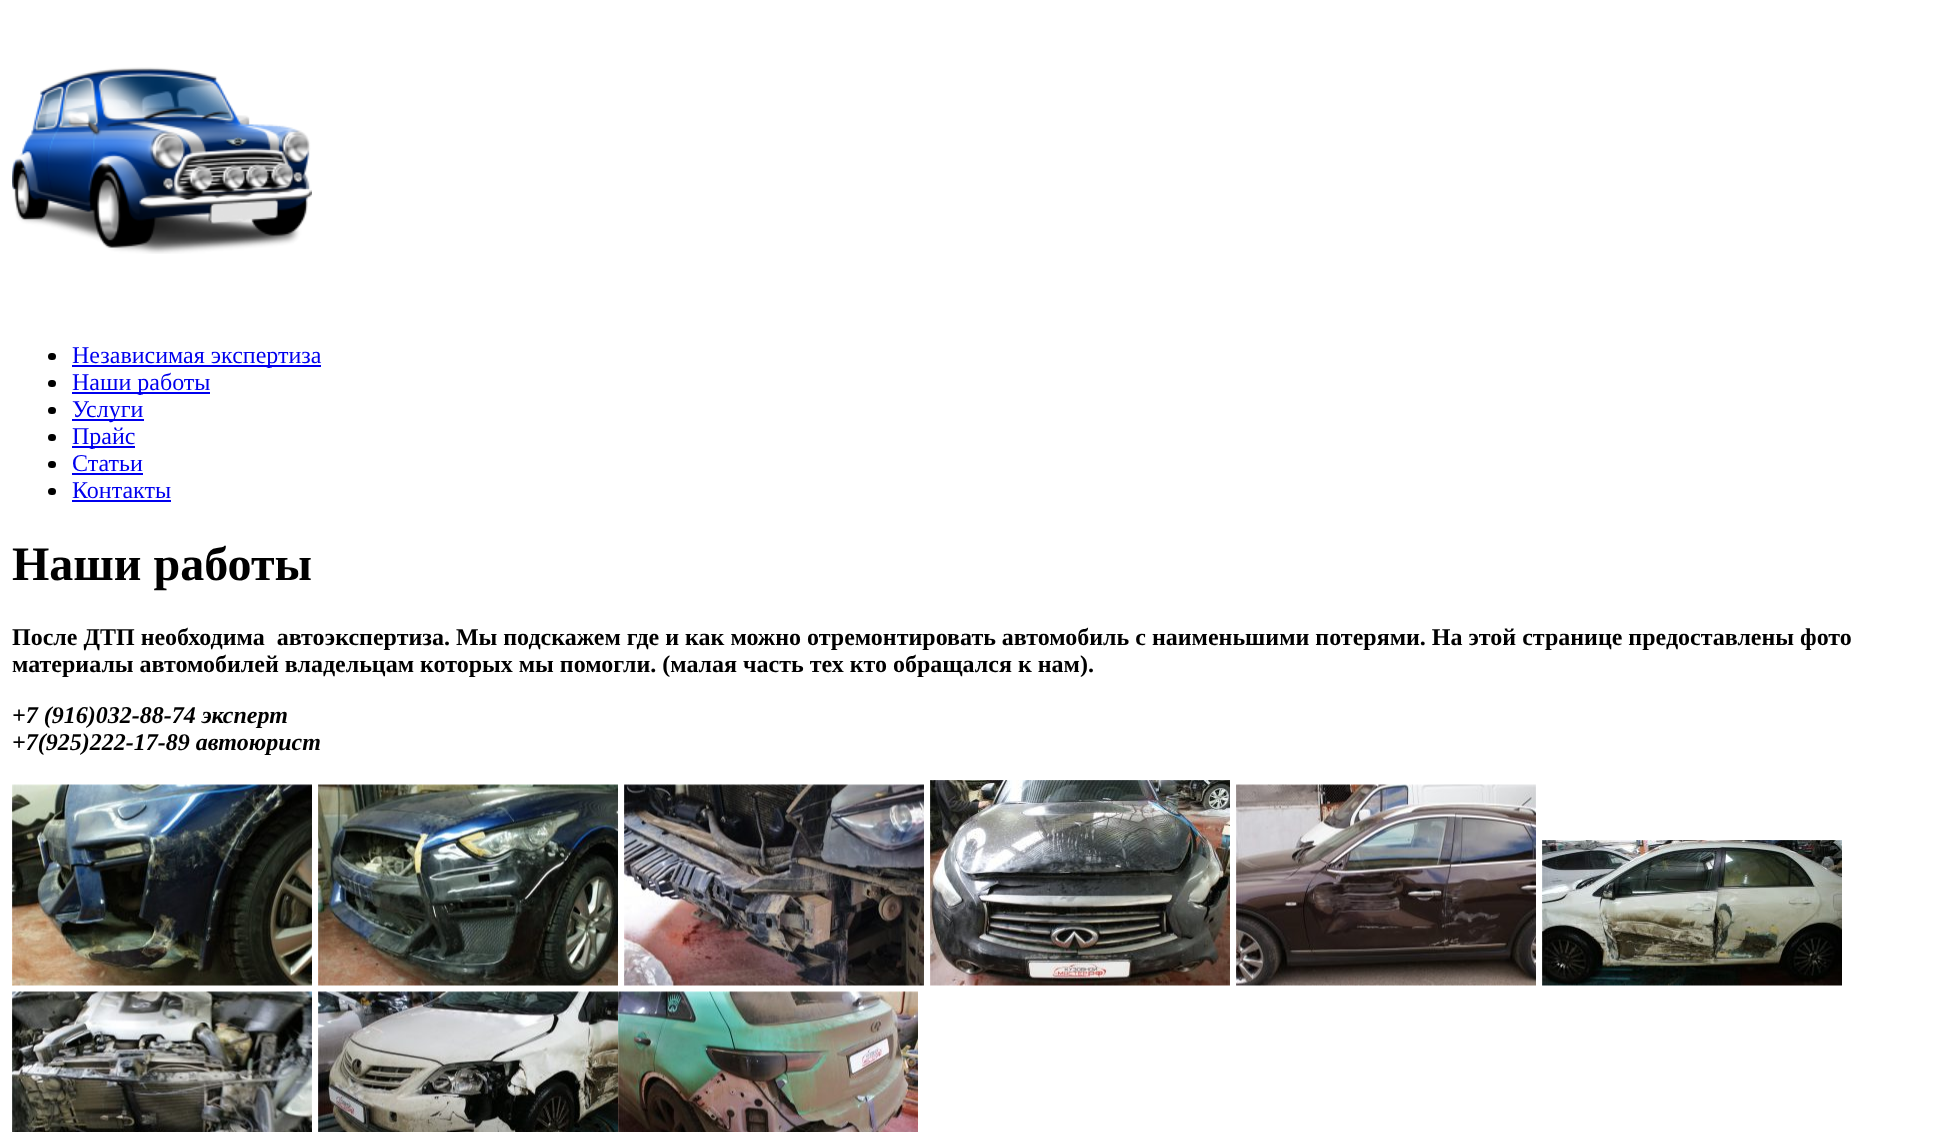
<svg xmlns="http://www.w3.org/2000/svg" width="1956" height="1132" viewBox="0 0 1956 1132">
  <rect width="100%" height="100%" fill="#fff"/>
  <image x="12" y="67" width="300" height="187" href="img/1.png"/>
  <rect x="48" y="353" width="8" height="7" rx="3.5" fill="#000"/>
  <path d="M72 365h249v2H72z" fill="#00e"/>
  <rect x="48" y="380" width="8" height="7" rx="3.5" fill="#000"/>
  <path d="M72 392h138v2H72z" fill="#00e"/>
  <rect x="48" y="407" width="8" height="7" rx="3.5" fill="#000"/>
  <path d="M72 419h72v2H72z" fill="#00e"/>
  <rect x="48" y="434" width="8" height="7" rx="3.5" fill="#000"/>
  <path d="M72 446h63v2H72z" fill="#00e"/>
  <rect x="48" y="461" width="8" height="7" rx="3.5" fill="#000"/>
  <path d="M72 473h71v2H72z" fill="#00e"/>
  <rect x="48" y="488" width="8" height="7" rx="3.5" fill="#000"/>
  <path d="M72 500h99v2H72z" fill="#00e"/>
  <image x="12" y="784" width="300" height="202" href="img/2.png"/>
  <image x="318" y="784" width="300" height="202" href="img/3.png"/>
  <image x="624" y="784" width="300" height="202" href="img/4.png"/>
  <image x="930" y="780" width="300" height="206" href="img/5.png"/>
  <image x="1236" y="784" width="300" height="202" href="img/6.png"/>
  <image x="1542" y="840" width="300" height="146" href="img/7.png"/>
  <image x="12" y="991" width="300" height="141" href="img/8.png"/>
  <image x="318" y="991" width="300" height="141" href="img/9.png"/>
  <image x="618" y="991" width="300" height="141" href="img/10.png"/>
  <g font-family="Liberation Serif" font-size="24" fill="#00e">
    <text x="72" y="363">Независимая экспертиза</text>
    <text x="72" y="390">Наши работы</text>
    <text x="72" y="417">Услуги</text>
    <text x="72" y="444">Прайс</text>
    <text x="72" y="471">Статьи</text>
    <text x="72" y="498">Контакты</text>
  </g>
  <text x="12" y="580" font-family="Liberation Serif" font-size="48" font-weight="bold" fill="#000">Наши работы</text>
  <g font-family="Liberation Serif" font-size="24" font-weight="bold" fill="#000">
    <text x="12" y="645" xml:space="preserve">После ДТП необходима  автоэкспертиза. Мы подскажем где и как можно отремонтировать автомобиль с наименьшими потерями. На этой странице предоставлены фото</text>
    <text x="12" y="672">материалы автомобилей владельцам которых мы помогли. (малая часть тех кто обращался к нам).</text>
  </g>
  <g font-family="Liberation Serif" font-size="24" font-weight="bold" font-style="italic" fill="#000">
    <text x="12" y="723">+7 (916)032-88-74 эксперт</text>
    <text x="12" y="750">+7(925)222-17-89 автоюрист</text>
  </g>
</svg>
